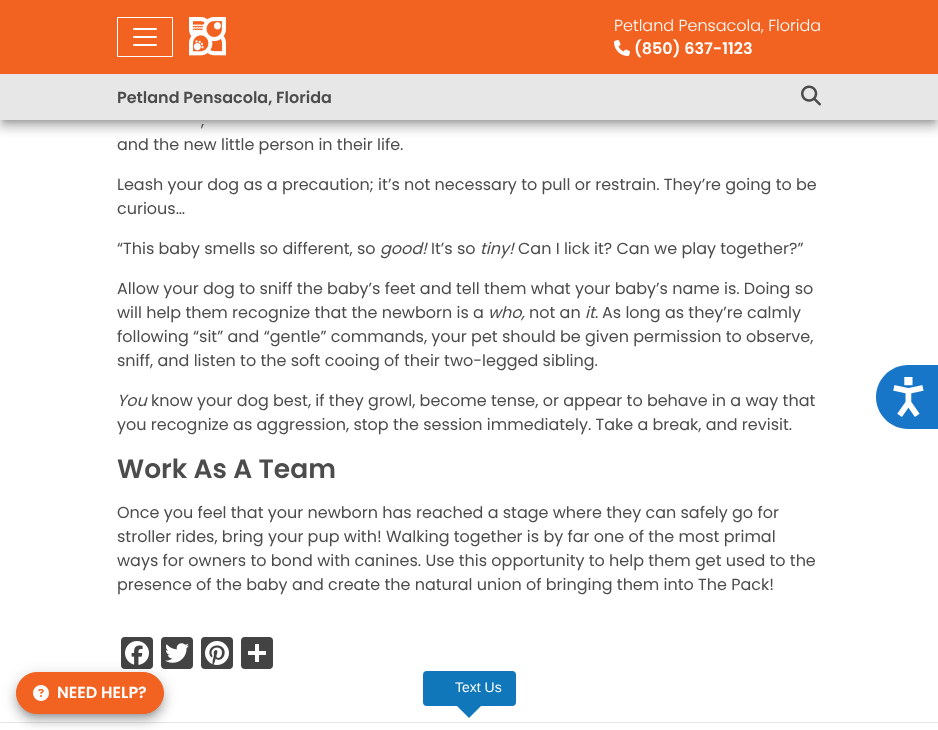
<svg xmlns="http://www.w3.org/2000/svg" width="938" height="730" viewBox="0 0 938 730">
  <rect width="100%" height="100%" fill="#fff"/>
  <path d="M-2 1h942v124H-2z" fill="#0000001f" filter="blur(7px)"/>
  <path d="M-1 7h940v122H-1z" fill="#00000024" filter="blur(5px)"/>
  <path d="M3 8h932v114H3z" fill="#00000033" filter="blur(2.5px)"/>
  <path d="M0 74h938v46H0z" fill="#e7e7e7"/>
  <path d="M0 0h938v74H0z" fill="#f26322"/>
  <path d="M117.5 17.5h55v39H117.5z" fill="none" stroke="#fff"/>
  <image x="133" y="28" width="24" height="18" href="img/1.png"/>
  <image x="189" y="17" width="37" height="39" href="img/2.png"/>
  <image x="614" y="40" width="16" height="16" href="img/3.png"/>
  <image x="801" y="85" width="20" height="21" href="img/4.png"/>
  <rect x="121" y="637" width="32" height="32" rx="4" fill="#434343"/>
  <image x="125" y="641" width="24" height="24" href="img/5.png"/>
  <rect x="161" y="637" width="32" height="32" rx="4" fill="#434343"/>
  <image x="165" y="643" width="24" height="20" href="img/6.png"/>
  <rect x="201" y="637" width="32" height="32" rx="4" fill="#434343"/>
  <image x="205" y="641" width="24" height="24" href="img/7.png"/>
  <rect x="241" y="637" width="32" height="32" rx="4" fill="#434343"/>
  <path d="M255 644h4v18H255z" fill="#fff"/>
  <path d="M248 651h18v4H248z" fill="#fff"/>
  <path d="M908 365H938V429H908C890.5 429 876 414.5 876 397C876 379.5 890.5 365 908 365Z" fill="#1876c9"/>
  <image x="893" y="377" width="31" height="40" href="img/8.png"/>
  <path d="M0 722h938v1H0z" fill="#e7e7e7"/>
  <rect x="14" y="673" width="152" height="46" rx="23" fill="#0000001f" filter="blur(7px)"/>
  <rect x="15" y="679" width="150" height="44" rx="22" fill="#00000024" filter="blur(5px)"/>
  <rect x="19" y="680" width="142" height="36" rx="18" fill="#00000033" filter="blur(2.5px)"/>
  <rect x="16.5" y="672.5" width="147" height="41" rx="20.5" fill="#f26322" stroke="#f26322"/>
  <image x="33" y="685" width="16" height="16" href="img/9.png"/>
  <rect x="423" y="671" width="93" height="35" rx="4" fill="#0f77ba"/>
  <path d="M457 706H481L469 718Z" fill="#0f77ba"/>
  <text x="614" y="31" font-family="Poppins" font-size="16" font-weight="300" fill="#fff">Petland Pensacola, Florida</text>
  <text x="634" y="54" font-family="Poppins" font-size="16" font-weight="600" fill="#fff">(850) 637-1123</text>
  <text x="117" y="103" font-family="Poppins" font-size="16" font-weight="600" fill="#4c4c4c">Petland Pensacola, Florida</text>
  <g font-family="Poppins" font-size="16" fill="#4c4c4c">
    <text x="201" y="126">,</text>
    <text x="117" y="150">and the new little person in their life.</text>
    <text x="117" y="190">Leash your dog as a precaution; it’s not necessary to pull or restrain. They’re going to be</text>
    <text x="117" y="214">curious…</text>
    <text x="117" y="254">“This baby smells so different, so</text>
  </g>
  <text x="380" y="254" font-family="Poppins" font-size="16" font-style="italic" fill="#4c4c4c">good!</text>
  <text x="431" y="254" font-family="Poppins" font-size="16" fill="#4c4c4c">It’s so</text>
  <text x="480" y="254" font-family="Poppins" font-size="16" font-style="italic" fill="#4c4c4c">tiny!</text>
  <g font-family="Poppins" font-size="16" fill="#4c4c4c">
    <text x="518" y="254">Can I lick it? Can we play together?”</text>
    <text x="117" y="294">Allow your dog to sniff the baby’s feet and tell them what your baby’s name is. Doing so</text>
    <text x="117" y="318">will help them recognize that the newborn is a</text>
  </g>
  <text x="488" y="318" font-family="Poppins" font-size="16" font-style="italic" fill="#4c4c4c">who,</text>
  <text x="529" y="318" font-family="Poppins" font-size="16" fill="#4c4c4c">not an</text>
  <text x="585" y="318" font-family="Poppins" font-size="16" font-style="italic" fill="#4c4c4c">it.</text>
  <g font-family="Poppins" font-size="16" fill="#4c4c4c">
    <text x="602" y="318">As long as they’re calmly</text>
    <text x="117" y="342">following “sit” and “gentle” commands, your pet should be given permission to observe,</text>
    <text x="117" y="366">sniff, and listen to the soft cooing of their two-legged sibling.</text>
  </g>
  <text x="117" y="406" font-family="Poppins" font-size="16" font-style="italic" fill="#4c4c4c">You</text>
  <g font-family="Poppins" font-size="16" fill="#4c4c4c">
    <text x="151" y="406">know your dog best, if they growl, become tense, or appear to behave in a way that</text>
    <text x="117" y="430">you recognize as aggression, stop the session immediately. Take a break, and revisit.</text>
  </g>
  <text x="117" y="478" font-family="Poppins" font-size="26.5" font-weight="600" fill="#4c4c4c">Work As A Team</text>
  <g font-family="Poppins" font-size="16" fill="#4c4c4c">
    <text x="117" y="518">Once you feel that your newborn has reached a stage where they can safely go for</text>
    <text x="117" y="542">stroller rides, bring your pup with! Walking together is by far one of the most primal</text>
    <text x="117" y="566">ways for owners to bond with canines. Use this opportunity to help them get used to the</text>
    <text x="117" y="590">presence of the baby and create the natural union of bringing them into The Pack!</text>
  </g>
  <text x="57" y="698" font-family="Poppins" font-size="16" font-weight="600" fill="#fff">NEED HELP?</text>
  <text x="455" y="692" font-family="Liberation Sans" font-size="14" fill="#fff">Text Us</text>
</svg>
